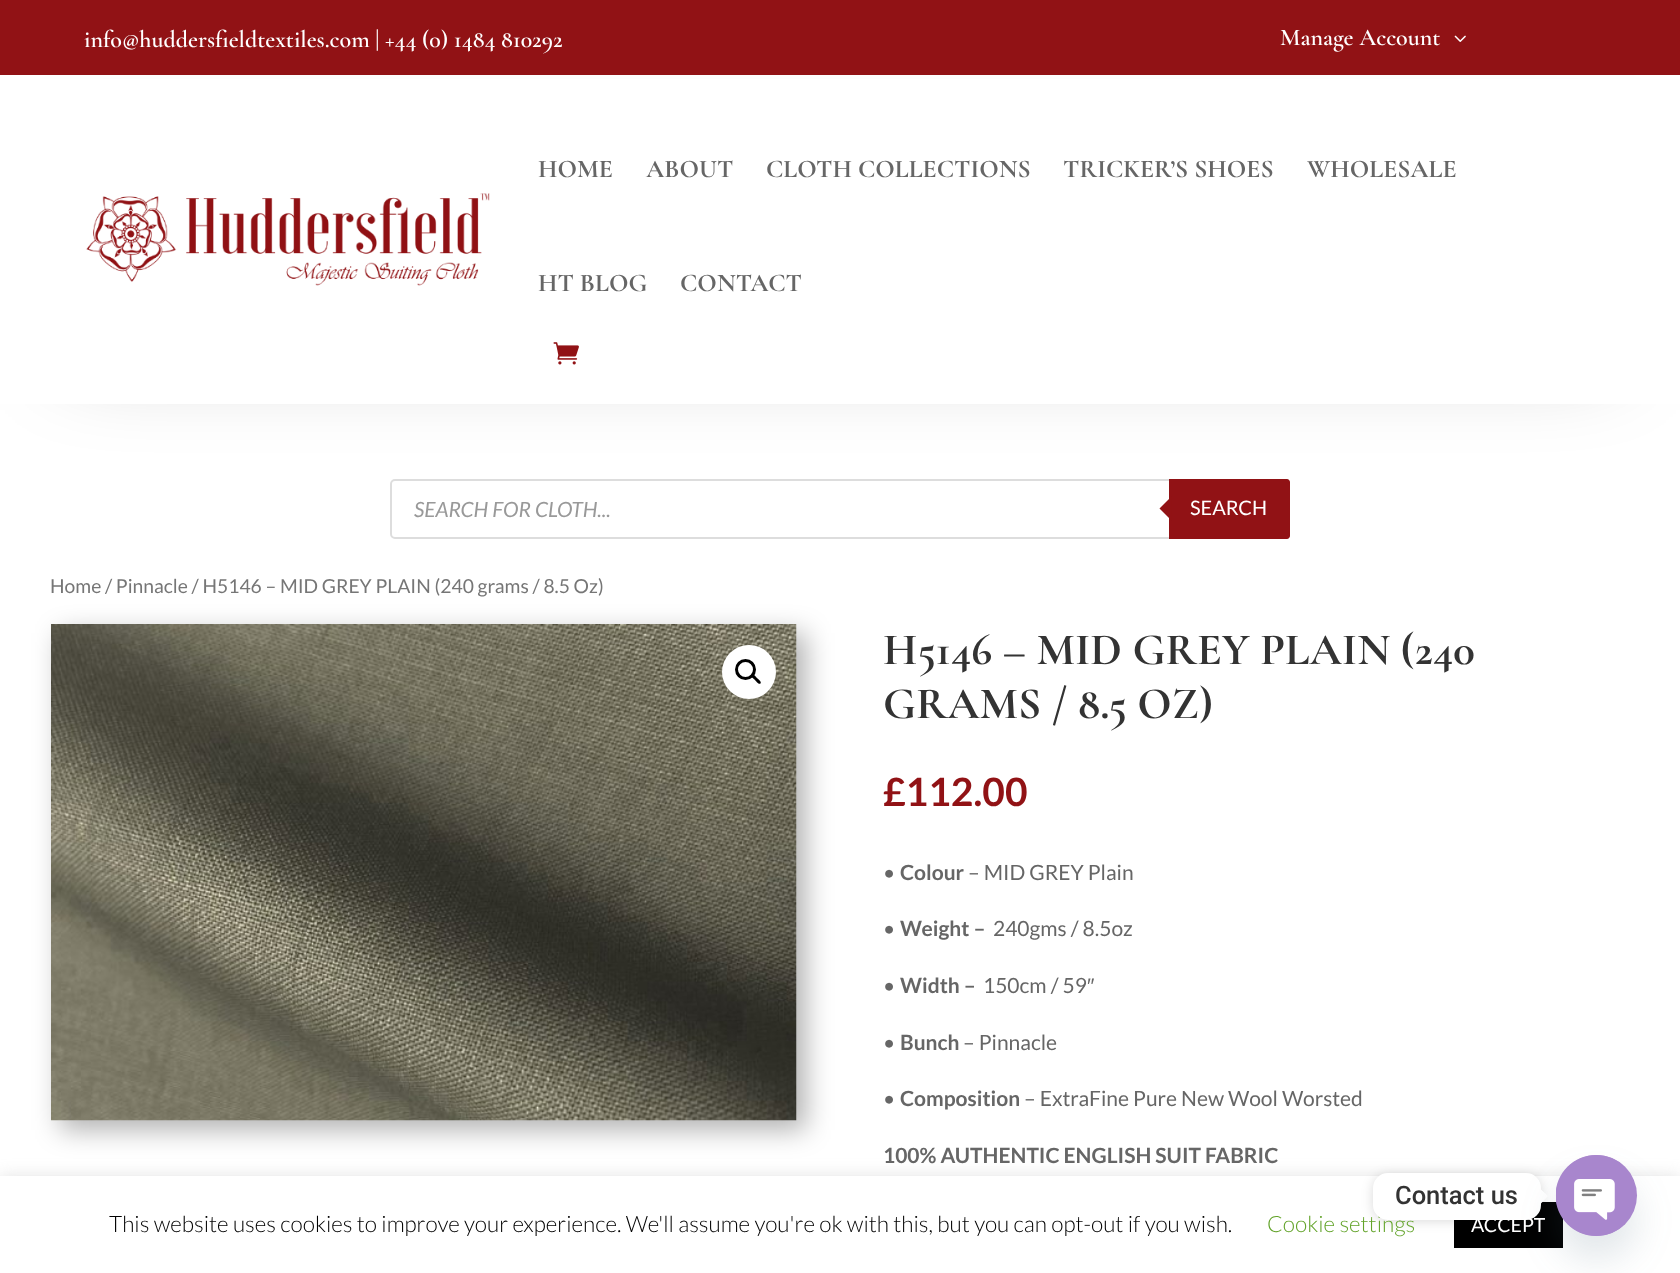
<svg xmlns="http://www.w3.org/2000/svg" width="1680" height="1273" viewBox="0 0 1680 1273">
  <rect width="100%" height="100%" fill="#fff"/>
  <rect x="391" y="480" width="898" height="58" rx="4" fill="none" stroke="#ddd" stroke-width="2"/>
  <path d="M1169 479H1287C1288.5 479 1290 480.5 1290 482V536C1290 537.5 1288.5 539 1287 539H1169Z" fill="#911215"/>
  <path d="M68 161h1545v193H68z" fill="#0000004d" filter="blur(45px)"/>
  <path d="M0 0h1680v75H0z" fill="#911215"/>
  <image x="1454" y="35" width="12" height="7" href="img/1.png"/>
  <path d="M0 79h1680v325H0z" fill="#fff"/>
  <image x="86" y="193" width="404" height="93" href="img/2.png"/>
  <image x="553" y="342" width="26" height="23" href="img/3.png"/>
  <path d="M1171.5 496.5V520.5L1159.5 508.5Z" fill="#911215"/>
  <path d="M60 633h746v497H60z" fill="#0000004d" filter="blur(13.5px)"/>
  <image x="51" y="624" width="746" height="497" href="img/4.png"/>
  <circle cx="749" cy="672" r="27" fill="#fff"/>
  <circle cx="745.5" cy="669.5" r="9" fill="none" stroke="#000" stroke-width="3"/>
  <path d="M752 675C753.5 673 756 677 757 678C758 679 762 681.5 760.5 683.5C758.5 685 756 681 755 680C754 679 750 676.5 752 675Z" fill="#000"/>
  <path d="M0 1175h1680v97H0z" fill="#acabab4d" filter="blur(7.5px)"/>
  <path d="M0 1176h1680v97H0z" fill="#fff"/>
  <path d="M1454 1202h109v46H1454z" fill="#000"/>
  <rect x="1373" y="1175" width="168" height="46" rx="15" fill="#00000026" filter="blur(6px)"/>
  <g font-family="Cormorant Garamond" font-size="24" font-weight="600" fill="#fff">
    <text x="84" y="47">info@huddersfieldtextiles.com | +44 (0) 1484 810292</text>
    <text x="1280" y="45">Manage Account</text>
  </g>
  <g font-family="Cormorant Garamond" font-size="25.5" font-weight="300" fill="#666">
    <text x="538" y="177">HOME</text>
    <text x="646" y="177">ABOUT</text>
    <text x="766" y="177">CLOTH COLLECTIONS</text>
    <text x="1063" y="177">TRICKER’S SHOES</text>
    <text x="1307" y="177">WHOLESALE</text>
    <text x="538" y="291">HT BLOG</text>
    <text x="680" y="291">CONTACT</text>
  </g>
  <text x="414" y="517" font-family="Lato" font-size="21" font-style="italic" fill="#999">SEARCH FOR CLOTH...</text>
  <text x="1190" y="515" font-family="Lato" font-size="20" fill="#fff">SEARCH</text>
  <text x="50" y="593" font-family="Lato" font-size="19.3" fill="#767676">Home / Pinnacle / H5146 – MID GREY PLAIN (240 grams / 8.5 Oz)</text>
  <g font-family="Cormorant Garamond" font-size="45" font-weight="300" fill="#333">
    <text x="883" y="664">H5146 – MID GREY PLAIN (240</text>
    <text x="883" y="718">GRAMS / 8.5 OZ)</text>
  </g>
  <text x="883" y="806" font-family="Lato" font-size="39" font-weight="bold" fill="#911215">£112.00</text>
  <text x="883" y="880" font-family="Lato" font-size="21" fill="#666">•</text>
  <text x="900" y="880" font-family="Lato" font-size="21" font-weight="bold" fill="#666">Colour</text>
  <g font-family="Lato" font-size="21" fill="#666">
    <text x="968" y="880">– MID GREY Plain</text>
    <text x="883" y="936">•</text>
  </g>
  <text x="900" y="936" font-family="Lato" font-size="21" font-weight="bold" fill="#666">Weight –</text>
  <text x="993" y="936" font-family="Lato" font-size="21" fill="#666">240gms / 8.5oz</text>
  <text x="900" y="993" font-family="Lato" font-size="21" font-weight="bold" fill="#666">Width –</text>
  <text x="983" y="993" font-family="Lato" font-size="21" fill="#666">150cm / 59</text>
  <text x="1087" y="993" font-family="Liberation Sans" font-size="21" fill="#666">″</text>
  <g font-family="Lato" font-size="21" fill="#666">
    <text x="883" y="993">•</text>
    <text x="883" y="1050">•</text>
  </g>
  <text x="900" y="1050" font-family="Lato" font-size="21" font-weight="bold" fill="#666">Bunch</text>
  <g font-family="Lato" font-size="21" fill="#666">
    <text x="963" y="1050">– Pinnacle</text>
    <text x="883" y="1106">•</text>
  </g>
  <text x="900" y="1106" font-family="Lato" font-size="21" font-weight="bold" fill="#666">Composition</text>
  <text x="1024" y="1106" font-family="Lato" font-size="21" fill="#666">– ExtraFine Pure New Wool Worsted</text>
  <text x="883" y="1163" font-family="Lato" font-size="21" font-weight="bold" fill="#666">100% AUTHENTIC ENGLISH SUIT FABRIC</text>
  <text x="109" y="1232" font-family="Lato" font-size="22.5" font-weight="300" fill="#000">This website uses cookies to improve your experience. We'll assume you're ok with this, but you can opt-out if you wish.</text>
  <text x="1267" y="1232" font-family="Lato" font-size="22.5" font-weight="300" fill="#62a329">Cookie settings</text>
  <rect x="1373" y="1173" width="168" height="47" rx="15" fill="#fff"/>
  <path d="M1540.5 1204V1189L1548 1196Z" fill="#fff"/>
  <rect x="1556" y="1179" width="81" height="81" rx="40.5" fill="#49687e29" filter="blur(18px)"/>
  <circle cx="1596.5" cy="1195.5" r="40.5" fill="#a886cd"/>
  <image x="1556" y="1155" width="67" height="81" href="img/5.png"/>
  <text x="1395" y="1204" font-family="Roboto" font-size="25.5" font-weight="500" fill="#333">Contact us</text>
  <text x="1471" y="1232" font-family="Lato" font-size="19.5" fill="#fff">ACCEPT</text>
</svg>
